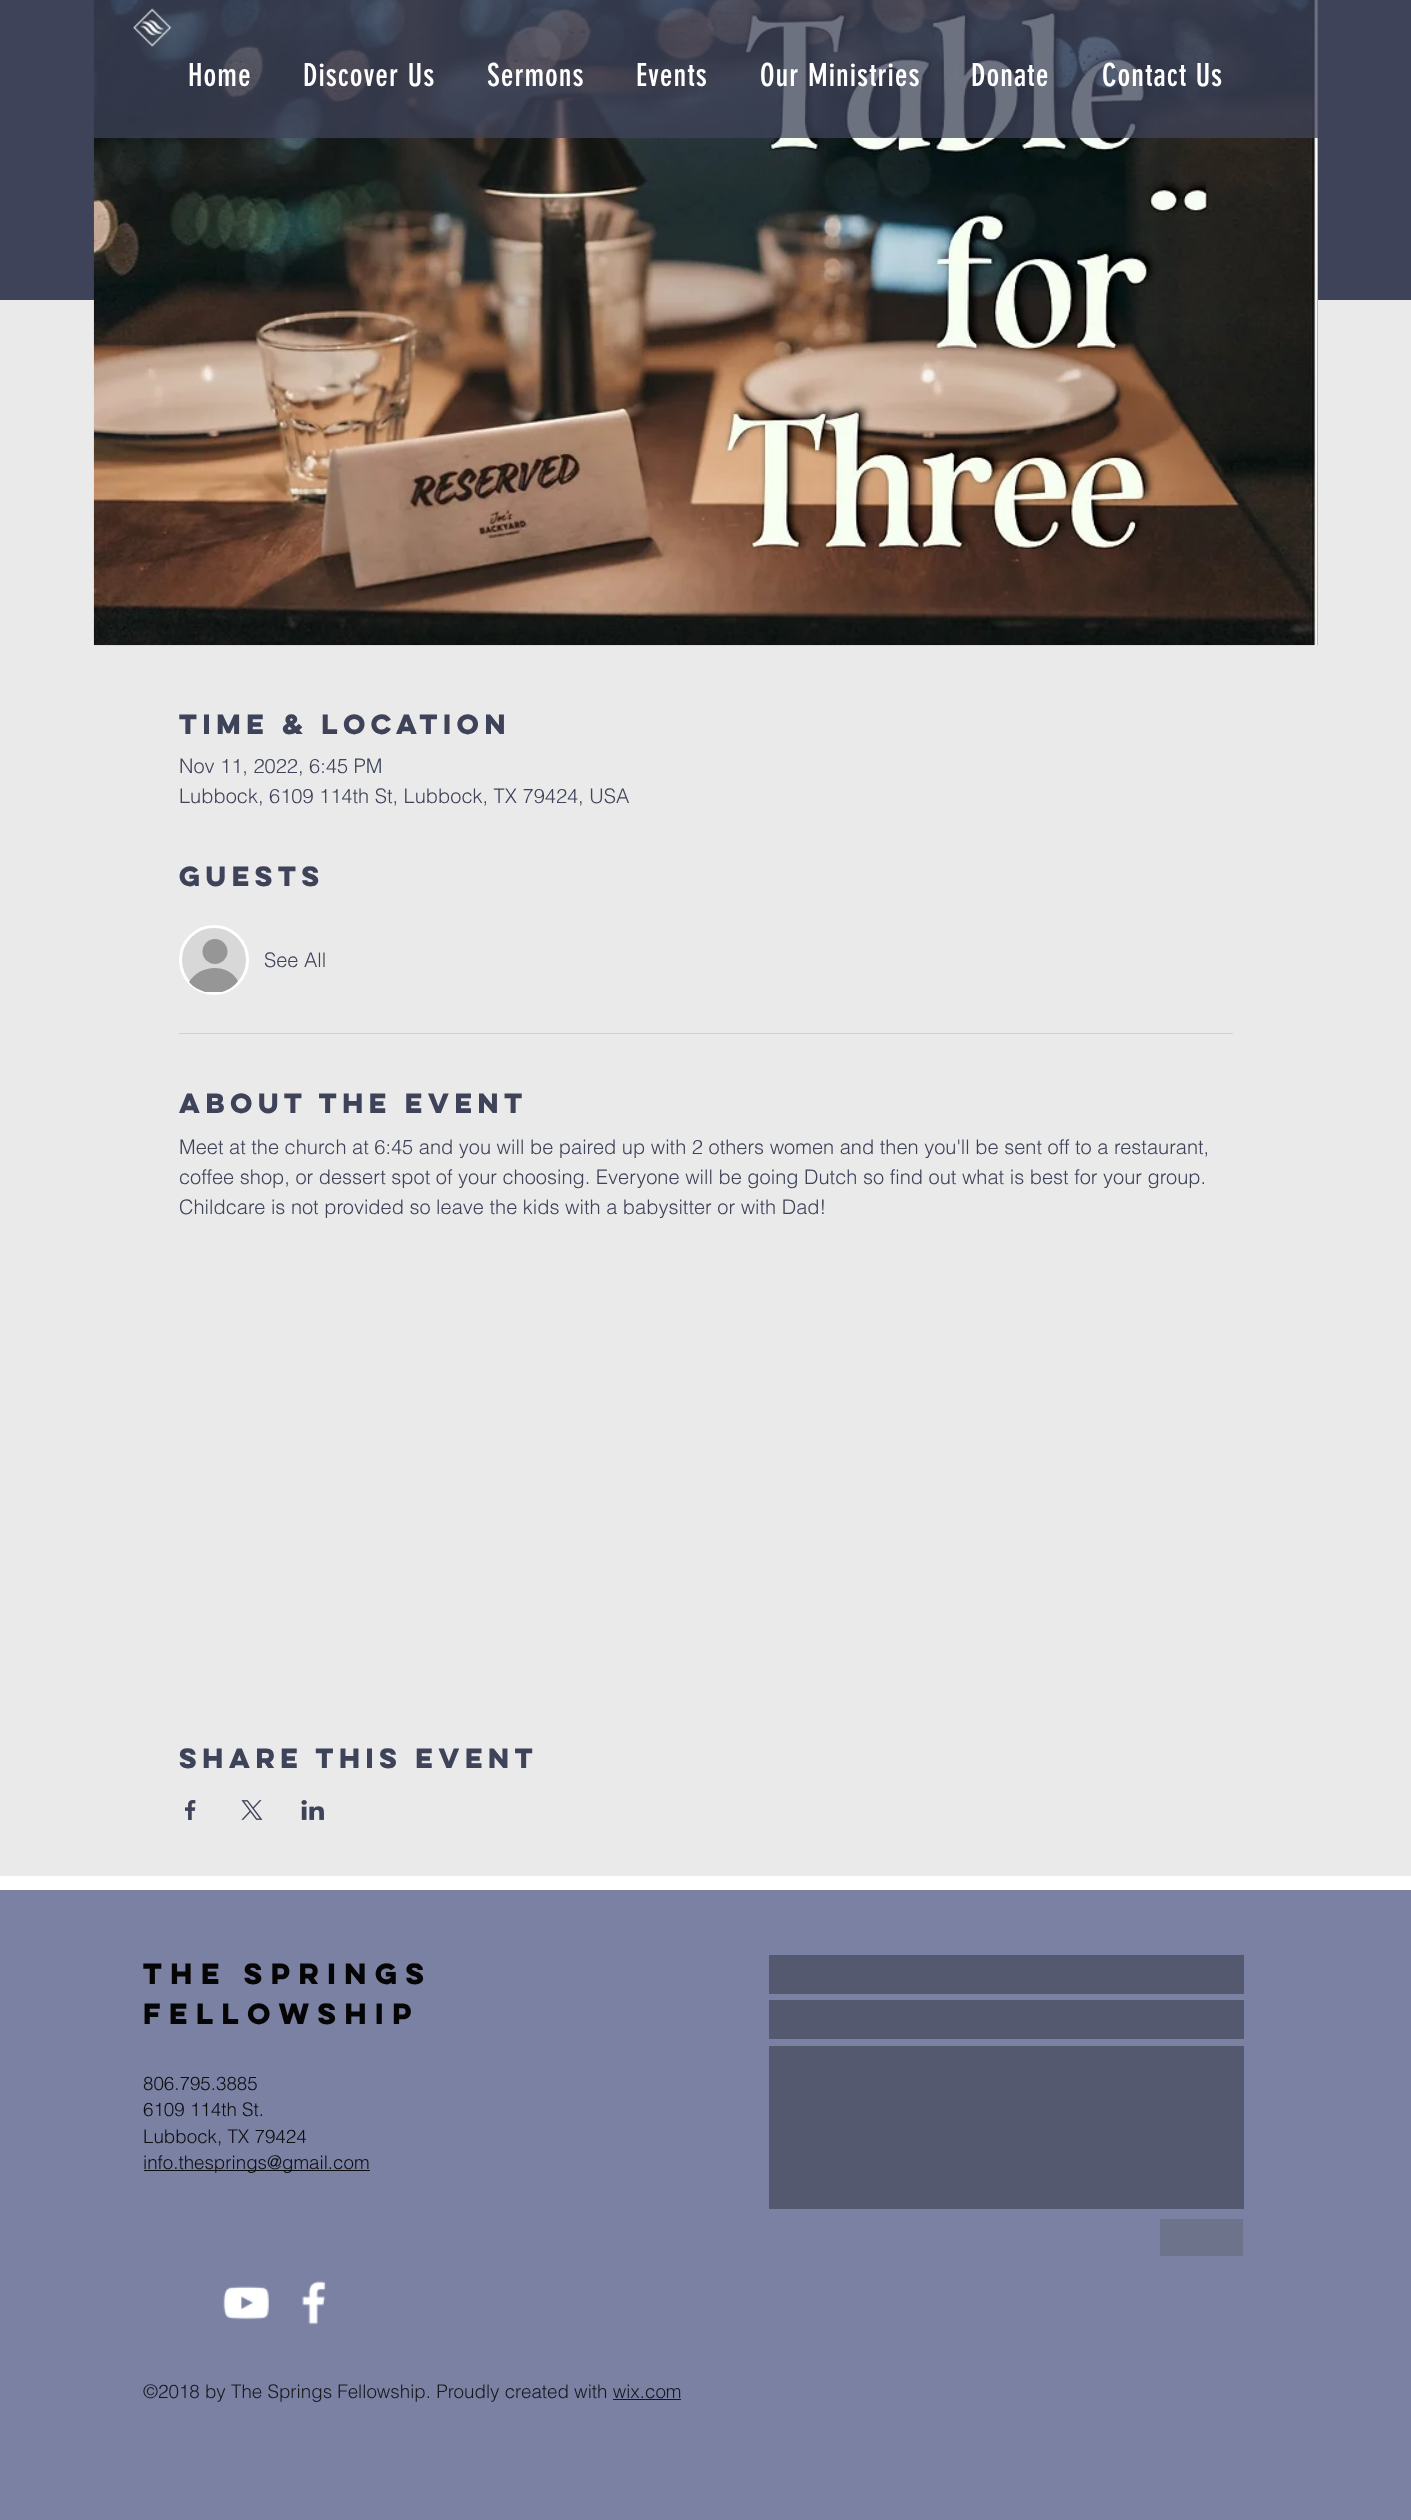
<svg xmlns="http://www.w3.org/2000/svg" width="1411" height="2520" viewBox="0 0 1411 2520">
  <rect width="100%" height="100%" fill="#fff"/>
  <path d="M0 0h1411v300H0z" fill="#3f4359"/>
  <path d="M0 300h1411v1576H0z" fill="#eaeaea"/>
  <path d="M1317 0h1v645H1317z" fill="#9b9eac"/>
  <image x="93" y="0" width="1225" height="646" href="img/2.png"/>
  <path d="M93 0h1225v138H93z" fill="#3f4359bf"/>
  <image x="133" y="8" width="39" height="39" href="img/1.png"/>
  <circle cx="214" cy="960" r="33.5" fill="#d8d8d8" stroke="#fff" stroke-width="3"/>
  <circle cx="215" cy="951.5" r="12.5" fill="#969696"/>
  <path d="M205 992C199 990 193 987 189 982C200 964 228 963 238 981C234 987 228 990 222 992Z" fill="#969696"/>
  <path d="M179 1033h1054v1H179z" fill="#d0d1d4"/>
  <image x="185" y="1800" width="11" height="20" href="img/3.png"/>
  <image x="241" y="1800" width="22" height="20" href="img/4.png"/>
  <image x="301" y="1800" width="23" height="20" href="img/5.png"/>
  <path d="M0 1890h1411v630H0z" fill="#7b81a3"/>
  <path d="M769 1955h475v39H769z" fill="#555970"/>
  <path d="M769 2000h475v39H769z" fill="#555970"/>
  <path d="M769 2046h475v163H769z" fill="#555970"/>
  <path d="M1160 2219h83v37H1160z" fill="#6e738c"/>
  <path d="M144 2170h226v1H144z" fill="#0e0e11"/>
  <image x="223" y="2286" width="46" height="34" href="img/6.png"/>
  <image x="302" y="2281" width="24" height="44" href="img/7.png"/>
  <path d="M613 2399h68v1H613z" fill="#17181c"/>
  <g font-family="'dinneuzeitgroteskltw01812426'" font-size="31.25" letter-spacing="1" fill="#fff">
    <text x="188" y="86">Home</text>
    <text x="303" y="86">Discover Us</text>
    <text x="487" y="86">Sermons</text>
    <text x="636" y="86">Events</text>
    <text x="760" y="86">Our Ministries</text>
    <text x="971" y="86">Donate</text>
    <text x="1102" y="86">Contact Us</text>
  </g>
  <text x="179" y="734" font-family="'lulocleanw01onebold'" font-size="25" font-weight="bold" fill="#3f4359">Time &amp; Location</text>
  <g font-family="helvetica" font-size="20" font-weight="300" fill="#3f4359">
    <text x="179" y="773">Nov 11, 2022, 6:45 PM</text>
    <text x="179" y="803">Lubbock, 6109 114th St, Lubbock, TX 79424, USA</text>
  </g>
  <text x="179" y="886" font-family="'lulocleanw01onebold'" font-size="25" font-weight="bold" fill="#3f4359">Guests</text>
  <text x="264" y="967" font-family="helvetica" font-size="20" font-weight="300" fill="#3f4359">See All</text>
  <text x="179" y="1113" font-family="'lulocleanw01onebold'" font-size="25" font-weight="bold" fill="#3f4359">About the Event</text>
  <g font-family="helvetica" font-size="20" font-weight="300" fill="#3f4359">
    <text x="179" y="1154">Meet at the church at 6:45 and you will be paired up with 2 others women and then you'll be sent off to a restaurant,</text>
    <text x="179" y="1184">coffee shop, or dessert spot of your choosing. Everyone will be going Dutch so find out what is best for your group.</text>
    <text x="179" y="1214">Childcare is not provided so leave the kids with a babysitter or with Dad!</text>
  </g>
  <text x="179" y="1768" font-family="'lulocleanw01onebold'" font-size="25" font-weight="bold" fill="#3f4359">Share This Event</text>
  <g font-family="'lulocleanw01onebold'" font-size="26.25" font-weight="bold" letter-spacing="2.6" fill="#050505">
    <text x="143" y="1984">the springs</text>
    <text x="143" y="2024">fellowship</text>
  </g>
  <g font-family="helvetica" font-size="18.75" font-weight="300" fill="#0e0e11">
    <text x="143" y="2090">806.795.3885</text>
    <text x="143" y="2116">6109 114th St.</text>
    <text x="143" y="2143">Lubbock, TX 79424</text>
    <text x="143" y="2169">info.thesprings@gmail.com</text>
  </g>
  <text x="143" y="2398" font-family="helvetica" font-size="18.75" font-weight="300" fill="#17181c">©2018 by The Springs Fellowship. Proudly created with wix.com</text>
</svg>
